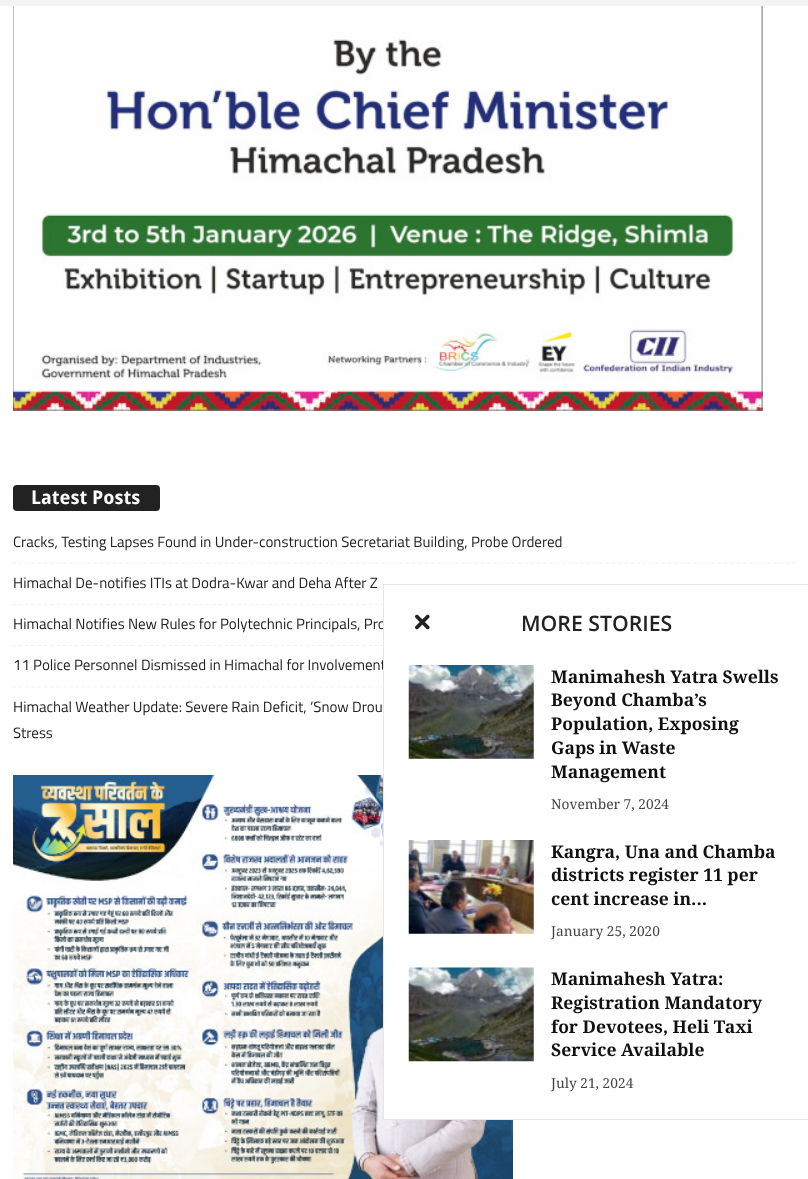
<svg xmlns="http://www.w3.org/2000/svg" width="808" height="1179" viewBox="0 0 808 1179">
  <rect width="100%" height="100%" fill="#fff"/>
  <path d="M0 0h808v6H0z" fill="#f4f4f4"/>
  <image x="13" y="6" width="750" height="405" href="img/1.png"/>
  <rect x="13" y="485" width="147" height="26" rx="4" fill="#222"/>
  <path d="M12.5 563H796" fill="none" stroke="#f1f1f1" stroke-width="1.2" stroke-dasharray="3.75 2.49"/>
  <path d="M12.5 604.5H796" fill="none" stroke="#f1f1f1" stroke-width="1.2" stroke-dasharray="3.75 2.49"/>
  <path d="M12.5 645.5H796" fill="none" stroke="#f1f1f1" stroke-width="1.2" stroke-dasharray="3.75 2.49"/>
  <path d="M12.5 687H796" fill="none" stroke="#f1f1f1" stroke-width="1.2" stroke-dasharray="3.75 2.49"/>
  <image x="13" y="775" width="500" height="404" href="img/2.png"/>
  <path d="M383 584h425v1H383z" fill="#e6e6e6"/>
  <path d="M383 1119h425v1H383z" fill="#e6e6e6"/>
  <text x="31" y="504" font-family="Droid Sans" font-size="18.75" font-weight="bold" fill="#fff">Latest Posts</text>
  <g font-family="Titillium Web" font-size="15" fill="#222">
    <text x="13" y="547">Cracks, Testing Lapses Found in Under-construction Secretariat Building, Probe Ordered</text>
    <text x="13" y="588">Himachal De-notifies ITIs at Dodra-Kwar and Deha After Z</text>
    <text x="13" y="629">Himachal Notifies New Rules for Polytechnic Principals, Pro</text>
    <text x="13" y="670">11 Police Personnel Dismissed in Himachal for Involvement</text>
    <text x="13" y="712">Himachal Weather Update: Severe Rain Deficit, ‘Snow Drou</text>
    <text x="13" y="738">Stress</text>
  </g>
  <path d="M384 604h412v515H384z" fill="#fff"/>
  <path d="M383 584h1v536H383z" fill="#e6e6e6"/>
  <image x="415" y="614" width="15" height="16" href="img/3.png"/>
  <text x="521" y="631" font-family="Open Sans" font-size="21.25" font-weight="600" fill="#222">MORE STORIES</text>
  <image x="408" y="665" width="126" height="94" href="img/4.png"/>
  <g font-family="Droid Serif" font-size="17.5" font-weight="bold" fill="#111">
    <text x="551" y="683">Manimahesh Yatra Swells</text>
    <text x="551" y="706">Beyond Chamba’s</text>
    <text x="551" y="730">Population, Exposing</text>
    <text x="551" y="754">Gaps in Waste</text>
    <text x="551" y="778">Management</text>
  </g>
  <text x="551" y="809" font-family="Droid Serif" font-size="13.75" fill="#444">November 7, 2024</text>
  <image x="408" y="840" width="126" height="94" href="img/5.png"/>
  <g font-family="Droid Serif" font-size="17.5" font-weight="bold" fill="#111">
    <text x="551" y="858">Kangra, Una and Chamba</text>
    <text x="551" y="881">districts register 11 per</text>
    <text x="551" y="905">cent increase in...</text>
  </g>
  <text x="551" y="936" font-family="Droid Serif" font-size="13.75" fill="#444">January 25, 2020</text>
  <image x="408" y="967" width="126" height="95" href="img/6.png"/>
  <g font-family="Droid Serif" font-size="17.5" font-weight="bold" fill="#111">
    <text x="551" y="985">Manimahesh Yatra:</text>
    <text x="551" y="1009">Registration Mandatory</text>
    <text x="551" y="1033">for Devotees, Heli Taxi</text>
    <text x="551" y="1056">Service Available</text>
  </g>
  <text x="551" y="1088" font-family="Droid Serif" font-size="13.75" fill="#444">July 21, 2024</text>
</svg>
